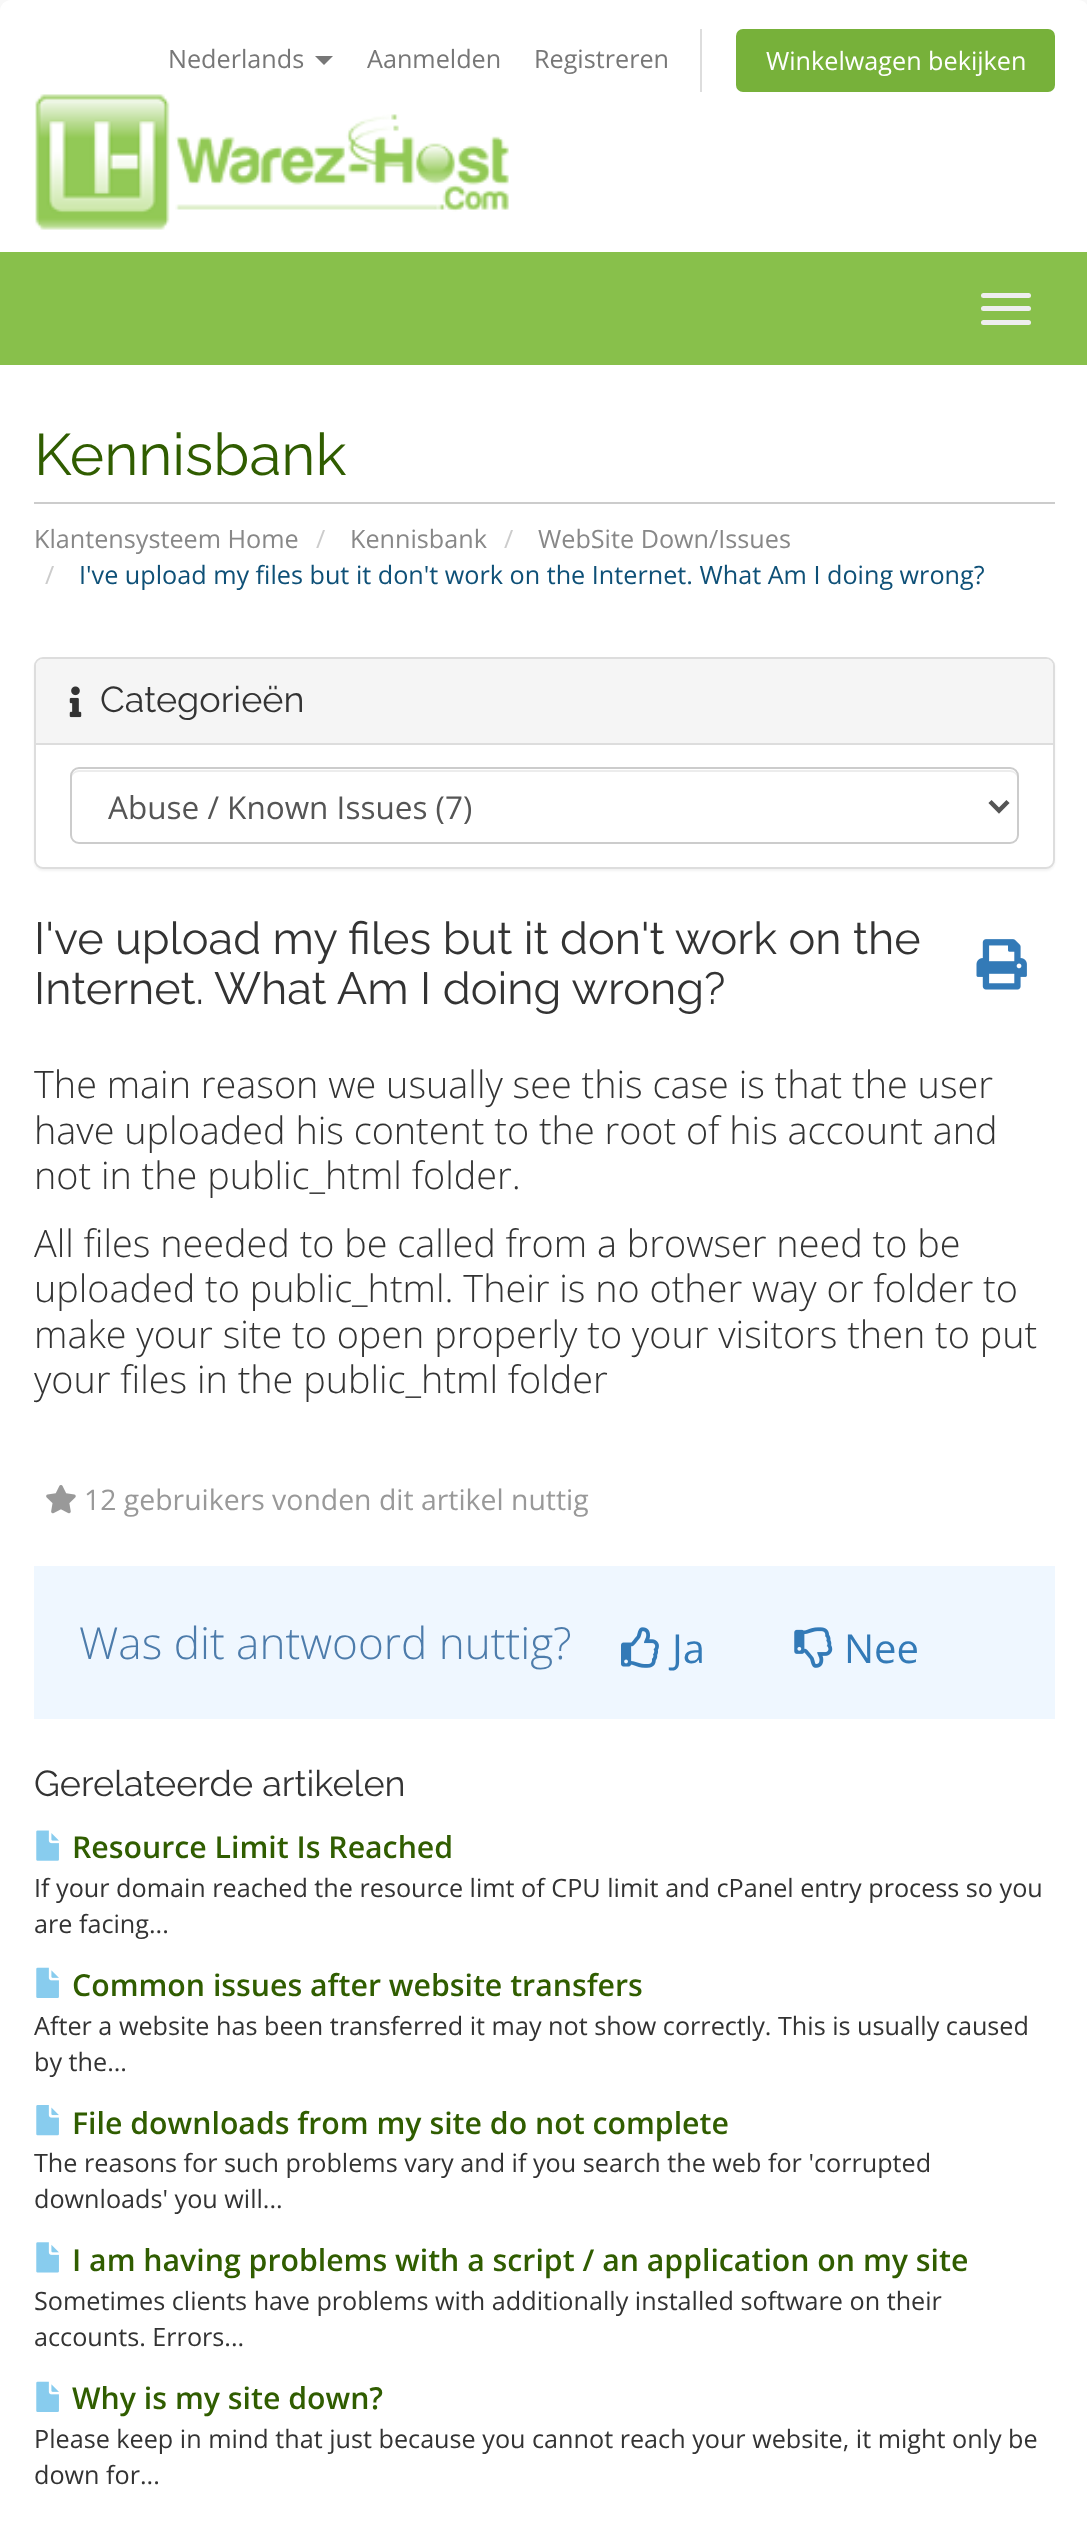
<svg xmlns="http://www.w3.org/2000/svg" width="1087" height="2536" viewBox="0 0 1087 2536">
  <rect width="100%" height="100%" fill="#f8f8f8"/>
  <path d="M11 0H1078C1084 0 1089 5 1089 11V252H0V11C0 5 5 0 11 0Z" fill="#fff"/>
  <path d="M315 56H333L324 65Z" fill="#777"/>
  <path d="M700 29h2v63H700z" fill="#ddd"/>
  <rect x="736" y="29" width="319" height="63" rx="7" fill="#77b13a"/>
  <image x="35" y="94" width="474" height="136" href="img/1.png"/>
  <path d="M0 252h1087v113H0z" fill="#88c04b"/>
  <rect x="981" y="293" width="50" height="5" rx="2.5" fill="#eee"/>
  <rect x="981" y="306" width="50" height="5" rx="2.5" fill="#eee"/>
  <rect x="981" y="320" width="50" height="5" rx="2.5" fill="#eee"/>
  <path d="M0 365h1087v2171H0z" fill="#fff"/>
  <path d="M34 502h1021v2H34z" fill="#ccc"/>
  <rect x="34" y="659" width="1021" height="212" rx="9" fill="#0000000d" filter="blur(1px)"/>
  <rect x="35" y="658" width="1019" height="210" rx="8" fill="#fff" stroke="#ddd" stroke-width="2"/>
  <path d="M43 659H1046C1050 659 1053 662 1053 666V745H36V666C36 662 39 659 43 659Z" fill="#f5f5f5"/>
  <path d="M36 743h1017v2H36z" fill="#ddd"/>
  <image x="69" y="686" width="13" height="32" href="img/2.png"/>
  <path d="M79 772H1010C1014 772 1017 775 1017 778V777C1017 773 1014 770 1010 770H79C75 770 72 773 72 777V778C72 775 75 772 79 772Z" fill="#ececec"/>
  <rect x="71" y="768" width="947" height="75" rx="8" fill="none" stroke="#ccc" stroke-width="2"/>
  <path d="M990 801.5L999 810.5L1008 801.5" fill="none" stroke="#555" stroke-width="4.5"/>
  <image x="976" y="939" width="51" height="51" href="img/3.png"/>
  <image x="46" y="1485" width="30" height="29" href="img/4.png"/>
  <path d="M34 1566h1021v153H34z" fill="#eff7ff"/>
  <image x="621" y="1627" width="38" height="41" href="img/5.png"/>
  <image x="794" y="1627" width="39" height="41" href="img/6.png"/>
  <image x="36" y="1830" width="23" height="31" href="img/7.png"/>
  <image x="36" y="1967" width="23" height="31" href="img/8.png"/>
  <image x="36" y="2105" width="23" height="31" href="img/9.png"/>
  <image x="36" y="2242" width="23" height="31" href="img/10.png"/>
  <image x="36" y="2381" width="23" height="31" href="img/8.png"/>
  <g font-family="Open Sans" font-size="25.2" fill="#777">
    <text x="168" y="68">Nederlands</text>
    <text x="367" y="68">Aanmelden</text>
    <text x="534" y="68">Registreren</text>
  </g>
  <text x="766" y="70" font-family="Open Sans" font-size="25.2" fill="#fff">Winkelwagen bekijken</text>
  <text x="34" y="475" font-family="Raleway" font-size="58.5" fill="#305d00">Kennisbank</text>
  <text x="34" y="548" font-family="Open Sans" font-size="25.2" fill="#888">Klantensysteem Home</text>
  <text x="316" y="548" font-family="Open Sans" font-size="25.2" fill="#ccc">/</text>
  <text x="350" y="548" font-family="Open Sans" font-size="25.2" fill="#888">Kennisbank</text>
  <text x="504" y="548" font-family="Open Sans" font-size="25.2" fill="#ccc">/</text>
  <text x="538" y="548" font-family="Open Sans" font-size="25.2" fill="#888">WebSite Down/Issues</text>
  <text x="45" y="584" font-family="Open Sans" font-size="25.2" fill="#ccc">/</text>
  <text x="79" y="584" font-family="Open Sans" font-size="25.2" fill="#0e5077">I've upload my files but it don't work on the Internet. What Am I doing wrong?</text>
  <text x="100" y="712" font-family="Raleway" font-size="36" fill="#333">Categorieën</text>
  <text x="108" y="819" font-family="Open Sans" font-size="31.5" fill="#555">Abuse / Known Issues (7)</text>
  <g font-family="Raleway" font-size="45" fill="#333">
    <text x="34" y="954">I've upload my files but it don't work on the</text>
    <text x="34" y="1004">Internet. What Am I doing wrong?</text>
  </g>
  <g font-family="Open Sans" font-size="37.8" font-weight="300" fill="#333">
    <text x="34" y="1098">The main reason we usually see this case is that the user</text>
    <text x="34" y="1144">have uploaded his content to the root of his account and</text>
    <text x="34" y="1189">not in the public_html folder.</text>
    <text x="34" y="1257">All files needed to be called from a browser need to be</text>
    <text x="34" y="1302">uploaded to public_html. Their is no other way or folder to</text>
    <text x="34" y="1348">make your site to open properly to your visitors then to put</text>
    <text x="34" y="1393">your files in the public_html folder</text>
  </g>
  <text x="84" y="1510" font-family="Open Sans" font-size="28.4" fill="#999">12 gebruikers vonden dit artikel nuttig</text>
  <text x="79" y="1659" font-family="Open Sans" font-size="44.1" font-weight="300" fill="#4d7cab">Was dit antwoord nuttig?</text>
  <g font-family="Open Sans" font-size="40" fill="#337ab7">
    <text x="672" y="1663">Ja</text>
    <text x="844" y="1663">Nee</text>
  </g>
  <text x="34" y="1796" font-family="Raleway" font-size="36" fill="#333">Gerelateerde artikelen</text>
  <text x="72" y="1858" font-family="Open Sans" font-size="30.25" font-weight="600" fill="#305d00">Resource Limit Is Reached</text>
  <g font-family="Open Sans" font-size="25.2" fill="#333">
    <text x="34" y="1897">If your domain reached the resource limt of CPU limit and cPanel entry process so you</text>
    <text x="34" y="1933">are facing...</text>
  </g>
  <text x="72" y="1996" font-family="Open Sans" font-size="30.25" font-weight="600" fill="#305d00">Common issues after website transfers</text>
  <g font-family="Open Sans" font-size="25.2" fill="#333">
    <text x="34" y="2035">After a website has been transferred it may not show correctly. This is usually caused</text>
    <text x="34" y="2071">by the...</text>
  </g>
  <text x="72" y="2134" font-family="Open Sans" font-size="30.25" font-weight="600" fill="#305d00">File downloads from my site do not complete</text>
  <g font-family="Open Sans" font-size="25.2" fill="#333">
    <text x="34" y="2172">The reasons for such problems vary and if you search the web for 'corrupted</text>
    <text x="34" y="2208">downloads' you will...</text>
  </g>
  <text x="72" y="2271" font-family="Open Sans" font-size="30.25" font-weight="600" fill="#305d00">I am having problems with a script / an application on my site</text>
  <g font-family="Open Sans" font-size="25.2" fill="#333">
    <text x="34" y="2310">Sometimes clients have problems with additionally installed software on their</text>
    <text x="34" y="2346">accounts. Errors...</text>
  </g>
  <text x="72" y="2409" font-family="Open Sans" font-size="30.25" font-weight="600" fill="#305d00">Why is my site down?</text>
  <g font-family="Open Sans" font-size="25.2" fill="#333">
    <text x="34" y="2448">Please keep in mind that just because you cannot reach your website, it might only be</text>
    <text x="34" y="2484">down for...</text>
  </g>
</svg>
